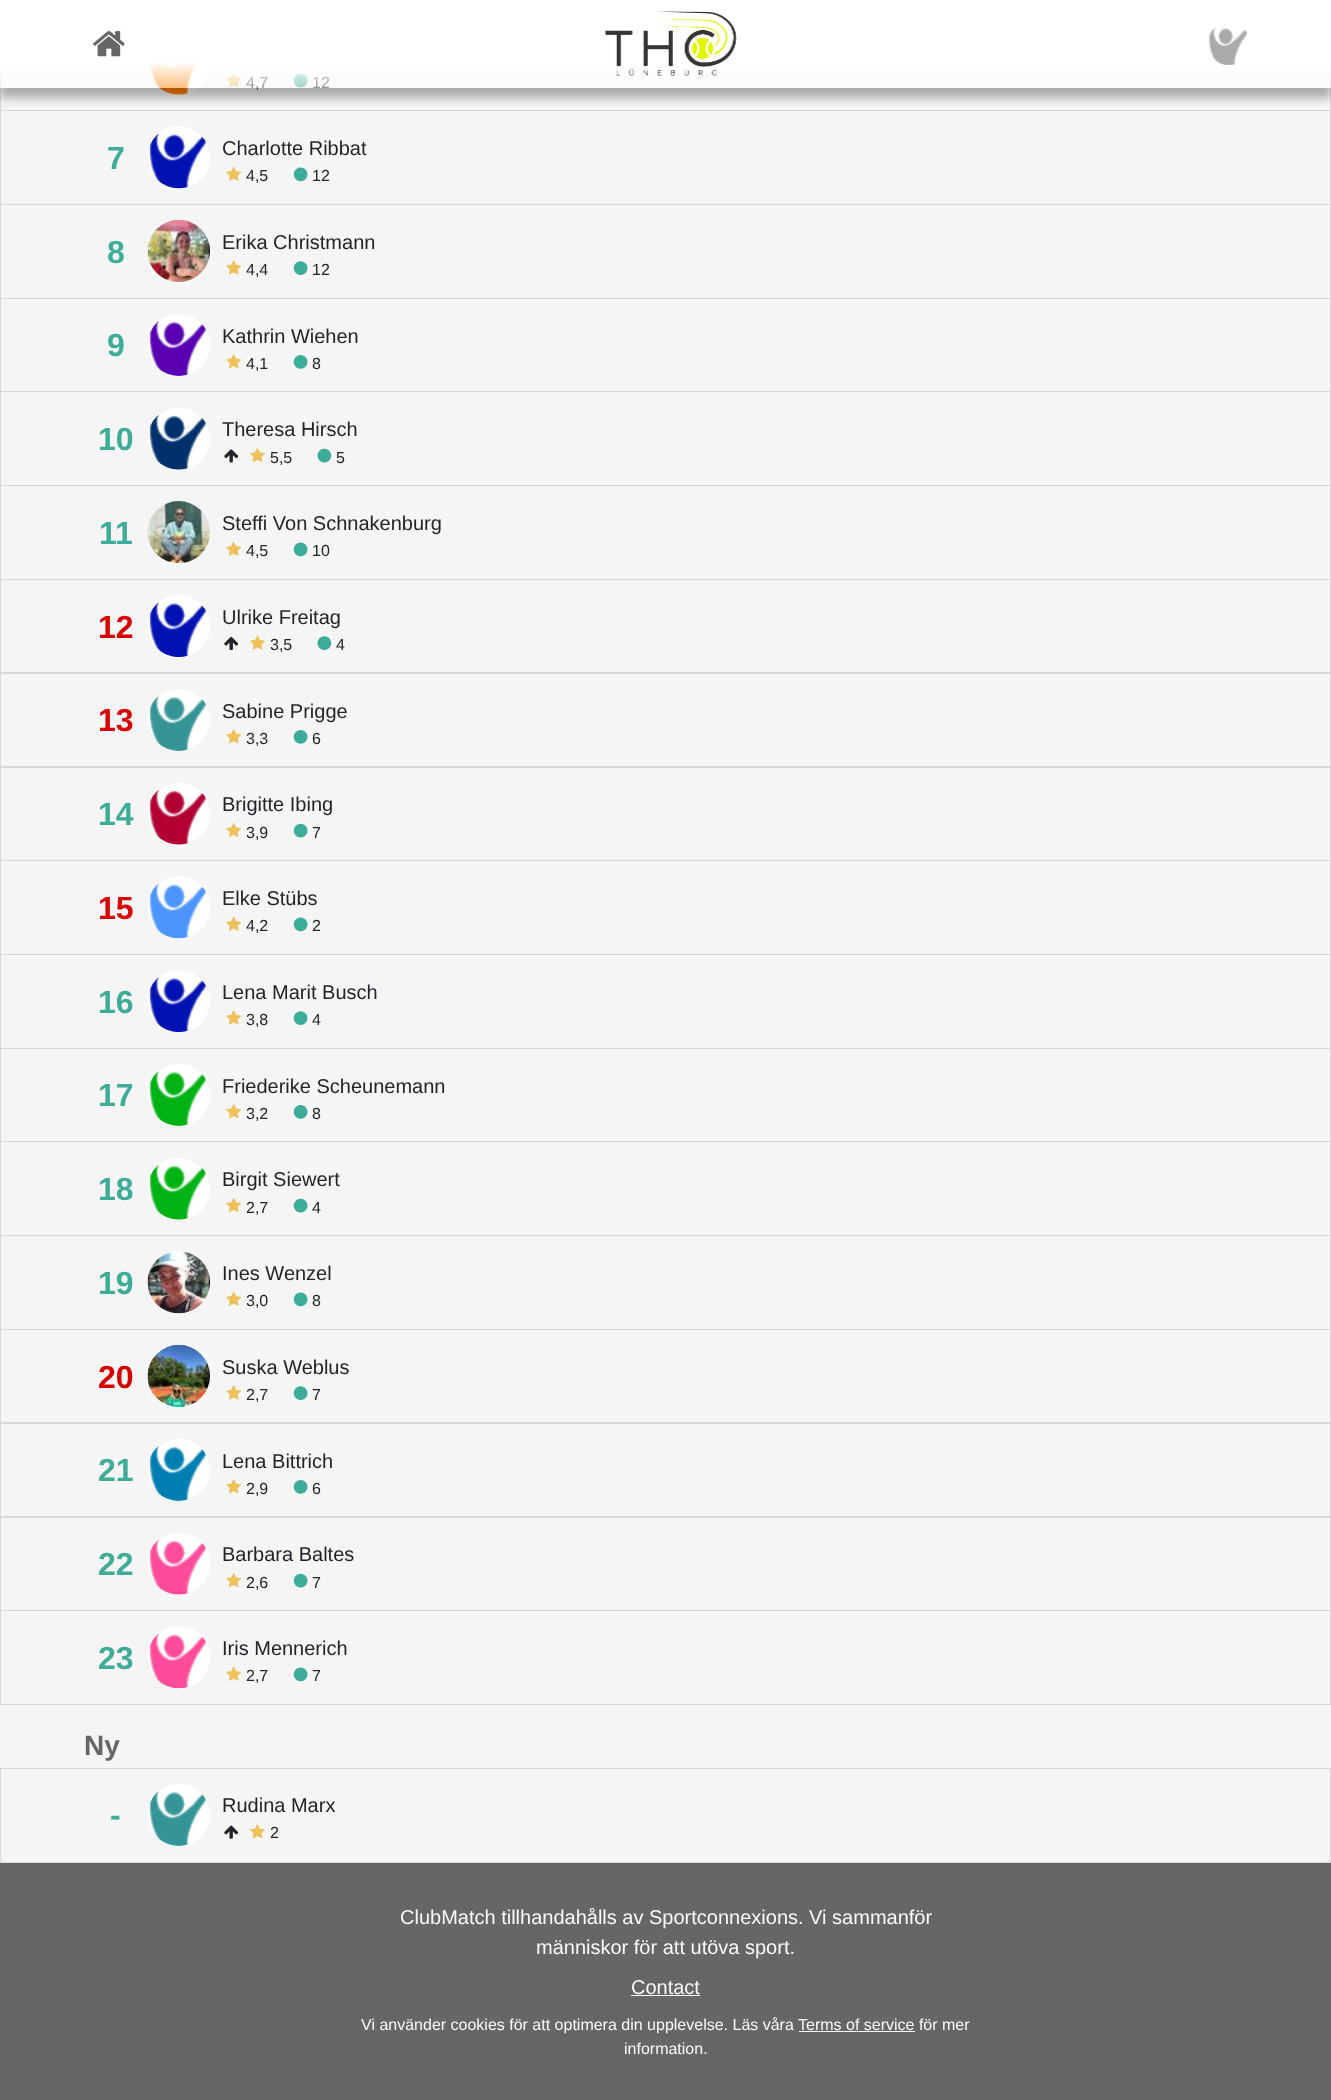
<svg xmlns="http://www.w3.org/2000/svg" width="1331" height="2100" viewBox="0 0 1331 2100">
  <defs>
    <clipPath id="clip1"><path d="M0 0H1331V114H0ZM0 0H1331V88H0Z" clip-rule="evenodd"/></clipPath>
    <linearGradient id="g1" gradientUnits="userSpaceOnUse" x1="666" y1="0" x2="666" y2="88"><stop offset="0" stop-color="#fff"/><stop offset="0.7" stop-color="#fff"/><stop offset="1" stop-color="#fff" stop-opacity="0.5"/></linearGradient>
  </defs>
  <rect width="100%" height="100%" fill="#666"/>
  <path d="M0 1858h1331v5H0z" fill="#d8d8d8"/>
  <rect y="-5" width="1331" height="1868" rx="5" fill="#f5f5f5"/>
  <path d="M1331 18V111L1330 110V18Z" fill="#d6d6d6"/>
  <path d="M1331 111H0L1 110H1330Z" fill="#0000001f"/>
  <path d="M0 111V18H1V110Z" fill="#0000001f"/>
  <circle cx="179" cy="64" r="31" fill="#fff"/>
  <image x="149" y="62" width="49" height="33" href="img/4.png"/>
  <image x="226" y="73" width="16" height="14" href="img/5.png"/>
  <image x="293" y="73" width="15" height="15" href="img/6.png"/>
  <path d="M1331 111V205L1330 204V111Z" fill="#d6d6d6"/>
  <path d="M1331 205H0L1 204H1330Z" fill="#0000001f"/>
  <path d="M0 205V111H1V204Z" fill="#0000001f"/>
  <g clip-path="url(#clip1)">
    <path d="M0 10h1331v88H0z" fill="#0000004d" filter="blur(5px)"/>
  </g>
  <rect x="148" y="126" width="62" height="63" rx="31" fill="#fff"/>
  <image x="149" y="133" width="58" height="56" href="img/7.png"/>
  <image x="226" y="166" width="16" height="15" href="img/8.png"/>
  <image x="293" y="167" width="15" height="15" href="img/9.png"/>
  <path d="M1331 205V299L1330 298V205Z" fill="#d6d6d6"/>
  <path d="M1331 299H0L1 298H1330Z" fill="#0000001f"/>
  <path d="M0 299V205H1V298Z" fill="#0000001f"/>
  <rect x="148" y="220" width="62" height="63" rx="31" fill="#fff"/>
  <image x="147" y="219" width="63" height="64" href="img/10.png"/>
  <image x="226" y="260" width="15" height="15" href="img/11.png"/>
  <image x="293" y="261" width="15" height="14" href="img/12.png"/>
  <path d="M1331 299V392L1330 391V299Z" fill="#d6d6d6"/>
  <path d="M1331 392H0L1 391H1330Z" fill="#0000001f"/>
  <path d="M0 392V299H1V391Z" fill="#0000001f"/>
  <circle cx="179" cy="345" r="31" fill="#fff"/>
  <image x="149" y="321" width="58" height="55" href="img/13.png"/>
  <image x="226" y="354" width="16" height="15" href="img/14.png"/>
  <image x="293" y="355" width="15" height="14" href="img/15.png"/>
  <path d="M1331 392V486L1330 485V392Z" fill="#d6d6d6"/>
  <path d="M1331 486H0L1 485H1330Z" fill="#0000001f"/>
  <path d="M0 486V392H1V485Z" fill="#0000001f"/>
  <circle cx="179" cy="439" r="31" fill="#fff"/>
  <image x="149" y="414" width="58" height="56" href="img/16.png"/>
  <image x="224" y="449" width="15" height="14" href="img/17.png"/>
  <image x="250" y="448" width="15" height="14" href="img/18.png"/>
  <image x="317" y="448" width="15" height="15" href="img/19.png"/>
  <path d="M1331 486V580L1330 579V486Z" fill="#d6d6d6"/>
  <path d="M1331 580H0L1 579H1330Z" fill="#0000001f"/>
  <path d="M0 580V486H1V579Z" fill="#0000001f"/>
  <rect x="148" y="501" width="62" height="63" rx="31" fill="#fff"/>
  <image x="147" y="501" width="63" height="63" href="img/20.png"/>
  <image x="226" y="541" width="16" height="15" href="img/8.png"/>
  <image x="293" y="542" width="15" height="15" href="img/9.png"/>
  <path d="M1331 580V674L1330 672V580Z" fill="#d6d6d6"/>
  <path d="M1331 674H0L1 672H1330Z" fill="#0000001f"/>
  <path d="M0 674V580H1V672Z" fill="#0000001f"/>
  <rect x="148" y="595" width="62" height="63" rx="31" fill="#fff"/>
  <image x="149" y="602" width="58" height="56" href="img/21.png"/>
  <image x="224" y="636" width="15" height="14" href="img/22.png"/>
  <image x="250" y="635" width="15" height="15" href="img/23.png"/>
  <image x="317" y="636" width="15" height="14" href="img/24.png"/>
  <path d="M1331 674V768L1330 766V674Z" fill="#d6d6d6"/>
  <path d="M1331 768H0L1 766H1330Z" fill="#0000001f"/>
  <path d="M0 768V674H1V766Z" fill="#0000001f"/>
  <circle cx="179" cy="720" r="31" fill="#fff"/>
  <image x="149" y="696" width="58" height="55" href="img/25.png"/>
  <image x="226" y="729" width="16" height="15" href="img/14.png"/>
  <image x="293" y="730" width="15" height="14" href="img/15.png"/>
  <path d="M1331 768V861L1330 860V768Z" fill="#d6d6d6"/>
  <path d="M1331 861H0L1 860H1330Z" fill="#0000001f"/>
  <path d="M0 861V768H1V860Z" fill="#0000001f"/>
  <circle cx="179" cy="814" r="31" fill="#fff"/>
  <image x="149" y="789" width="58" height="56" href="img/26.png"/>
  <image x="226" y="823" width="16" height="14" href="img/5.png"/>
  <image x="293" y="823" width="15" height="15" href="img/6.png"/>
  <path d="M1331 861V955L1330 954V861Z" fill="#d6d6d6"/>
  <path d="M1331 955H0L1 954H1330Z" fill="#0000001f"/>
  <path d="M0 955V861H1V954Z" fill="#0000001f"/>
  <rect x="148" y="876" width="62" height="63" rx="31" fill="#fff"/>
  <image x="149" y="883" width="58" height="56" href="img/27.png"/>
  <image x="226" y="916" width="16" height="15" href="img/8.png"/>
  <image x="293" y="917" width="15" height="15" href="img/9.png"/>
  <path d="M1331 955V1049L1330 1048V955Z" fill="#d6d6d6"/>
  <path d="M1331 1049H0L1 1048H1330Z" fill="#0000001f"/>
  <path d="M0 1049V955H1V1048Z" fill="#0000001f"/>
  <rect x="148" y="970" width="62" height="63" rx="31" fill="#fff"/>
  <image x="149" y="977" width="58" height="56" href="img/28.png"/>
  <image x="226" y="1010" width="15" height="15" href="img/11.png"/>
  <image x="293" y="1011" width="15" height="14" href="img/12.png"/>
  <path d="M1331 1049V1142L1330 1141V1049Z" fill="#d6d6d6"/>
  <path d="M1331 1142H0L1 1141H1330Z" fill="#0000001f"/>
  <path d="M0 1142V1049H1V1141Z" fill="#0000001f"/>
  <circle cx="179" cy="1095" r="31" fill="#fff"/>
  <image x="149" y="1071" width="58" height="55" href="img/29.png"/>
  <image x="226" y="1104" width="16" height="15" href="img/14.png"/>
  <image x="293" y="1105" width="15" height="14" href="img/15.png"/>
  <path d="M1331 1142V1236L1330 1235V1142Z" fill="#d6d6d6"/>
  <path d="M1331 1236H0L1 1235H1330Z" fill="#0000001f"/>
  <path d="M0 1236V1142H1V1235Z" fill="#0000001f"/>
  <circle cx="179" cy="1189" r="31" fill="#fff"/>
  <image x="149" y="1164" width="58" height="56" href="img/30.png"/>
  <image x="226" y="1198" width="16" height="14" href="img/5.png"/>
  <image x="293" y="1198" width="15" height="15" href="img/6.png"/>
  <path d="M1331 1236V1330L1330 1329V1236Z" fill="#d6d6d6"/>
  <path d="M1331 1330H0L1 1329H1330Z" fill="#0000001f"/>
  <path d="M0 1330V1236H1V1329Z" fill="#0000001f"/>
  <rect x="148" y="1251" width="62" height="63" rx="31" fill="#fff"/>
  <image x="147" y="1251" width="63" height="63" href="img/31.png"/>
  <image x="226" y="1291" width="16" height="15" href="img/8.png"/>
  <image x="293" y="1292" width="15" height="15" href="img/9.png"/>
  <path d="M1331 1330V1424L1330 1422V1330Z" fill="#d6d6d6"/>
  <path d="M1331 1424H0L1 1422H1330Z" fill="#0000001f"/>
  <path d="M0 1424V1330H1V1422Z" fill="#0000001f"/>
  <rect x="148" y="1345" width="62" height="63" rx="31" fill="#fff"/>
  <image x="147" y="1344" width="63" height="64" href="img/32.png"/>
  <image x="226" y="1385" width="15" height="15" href="img/11.png"/>
  <image x="293" y="1386" width="15" height="14" href="img/12.png"/>
  <path d="M1331 1424V1518L1330 1516V1424Z" fill="#d6d6d6"/>
  <path d="M1331 1518H0L1 1516H1330Z" fill="#0000001f"/>
  <path d="M0 1518V1424H1V1516Z" fill="#0000001f"/>
  <circle cx="179" cy="1470" r="31" fill="#fff"/>
  <image x="149" y="1446" width="58" height="55" href="img/33.png"/>
  <image x="226" y="1479" width="16" height="15" href="img/14.png"/>
  <image x="293" y="1480" width="15" height="14" href="img/15.png"/>
  <path d="M1331 1518V1611L1330 1610V1518Z" fill="#d6d6d6"/>
  <path d="M1331 1611H0L1 1610H1330Z" fill="#0000001f"/>
  <path d="M0 1611V1518H1V1610Z" fill="#0000001f"/>
  <circle cx="179" cy="1564" r="31" fill="#fff"/>
  <image x="149" y="1539" width="58" height="56" href="img/34.png"/>
  <image x="226" y="1573" width="16" height="14" href="img/5.png"/>
  <image x="293" y="1573" width="15" height="15" href="img/6.png"/>
  <path d="M1331 1611V1705L1330 1704V1611Z" fill="#d6d6d6"/>
  <path d="M1331 1705H0L1 1704H1330Z" fill="#0000001f"/>
  <path d="M0 1705V1611H1V1704Z" fill="#0000001f"/>
  <rect x="148" y="1626" width="62" height="63" rx="31" fill="#fff"/>
  <image x="149" y="1633" width="58" height="56" href="img/35.png"/>
  <image x="226" y="1666" width="16" height="15" href="img/8.png"/>
  <image x="293" y="1667" width="15" height="15" href="img/9.png"/>
  <path d="M0 1768H1331V1858C1331 1861 1329 1863 1326 1863H5C2 1863 0 1861 0 1858Z" fill="#f5f5f5"/>
  <path d="M.5 1768.5H1330.5V1858C1330.5 1860.5 1328.5 1862.5 1326 1862.5H5C2.5 1862.5 .5 1860.5 .5 1858Z" fill="none" stroke="#0000001f"/>
  <circle cx="179" cy="1815" r="31" fill="#fff"/>
  <image x="149" y="1791" width="58" height="55" href="img/36.png"/>
  <image x="224" y="1825" width="15" height="14" href="img/37.png"/>
  <image x="250" y="1824" width="15" height="15" href="img/38.png"/>
  <path d="M631 1995h69v1H631z" fill="#f8f9fa"/>
  <path d="M799 2031h116v1H799z" fill="#f8f9fa"/>
  <g font-family="Liberation Sans" font-size="16" fill="#212529">
    <text x="246" y="88">4,7</text>
    <text x="312" y="88">12</text>
  </g>
  <path d="M0 0h1331v88H0z" fill="url(#g1)"/>
  <image x="1208" y="27" width="40" height="38" href="img/3.png"/>
  <image x="604" y="11" width="133" height="65" href="img/2.png"/>
  <image x="93" y="31" width="32" height="26" href="img/1.png"/>
  <text x="107" y="169" font-family="Liberation Sans" font-size="32" font-weight="bold" fill="#3dac98">7</text>
  <text x="222" y="155" font-family="Liberation Sans" font-size="20" fill="#212529">Charlotte Ribbat</text>
  <g font-family="Liberation Sans" font-size="16" fill="#212529">
    <text x="246" y="181">4,5</text>
    <text x="312" y="181">12</text>
  </g>
  <text x="107" y="263" font-family="Liberation Sans" font-size="32" font-weight="bold" fill="#3dac98">8</text>
  <text x="222" y="249" font-family="Liberation Sans" font-size="20" fill="#212529">Erika Christmann</text>
  <g font-family="Liberation Sans" font-size="16" fill="#212529">
    <text x="246" y="275">4,4</text>
    <text x="312" y="275">12</text>
  </g>
  <text x="107" y="356" font-family="Liberation Sans" font-size="32" font-weight="bold" fill="#3dac98">9</text>
  <text x="222" y="343" font-family="Liberation Sans" font-size="20" fill="#212529">Kathrin Wiehen</text>
  <g font-family="Liberation Sans" font-size="16" fill="#212529">
    <text x="246" y="369">4,1</text>
    <text x="312" y="369">8</text>
  </g>
  <text x="98" y="450" font-family="Liberation Sans" font-size="32" font-weight="bold" fill="#3dac98">10</text>
  <text x="222" y="436" font-family="Liberation Sans" font-size="20" fill="#212529">Theresa Hirsch</text>
  <g font-family="Liberation Sans" font-size="16" fill="#212529">
    <text x="270" y="463">5,5</text>
    <text x="336" y="463">5</text>
  </g>
  <text x="99" y="544" font-family="Liberation Sans" font-size="32" font-weight="bold" fill="#3dac98">11</text>
  <text x="222" y="530" font-family="Liberation Sans" font-size="20" fill="#212529">Steffi Von Schnakenburg</text>
  <g font-family="Liberation Sans" font-size="16" fill="#212529">
    <text x="246" y="556">4,5</text>
    <text x="312" y="556">10</text>
  </g>
  <text x="98" y="638" font-family="Liberation Sans" font-size="32" font-weight="bold" fill="#d90000">12</text>
  <text x="222" y="624" font-family="Liberation Sans" font-size="20" fill="#212529">Ulrike Freitag</text>
  <g font-family="Liberation Sans" font-size="16" fill="#212529">
    <text x="270" y="650">3,5</text>
    <text x="336" y="650">4</text>
  </g>
  <text x="98" y="731" font-family="Liberation Sans" font-size="32" font-weight="bold" fill="#d90000">13</text>
  <text x="222" y="718" font-family="Liberation Sans" font-size="20" fill="#212529">Sabine Prigge</text>
  <g font-family="Liberation Sans" font-size="16" fill="#212529">
    <text x="246" y="744">3,3</text>
    <text x="312" y="744">6</text>
  </g>
  <text x="98" y="825" font-family="Liberation Sans" font-size="32" font-weight="bold" fill="#3dac98">14</text>
  <text x="222" y="811" font-family="Liberation Sans" font-size="20" fill="#212529">Brigitte Ibing</text>
  <g font-family="Liberation Sans" font-size="16" fill="#212529">
    <text x="246" y="838">3,9</text>
    <text x="312" y="838">7</text>
  </g>
  <text x="98" y="919" font-family="Liberation Sans" font-size="32" font-weight="bold" fill="#d90000">15</text>
  <text x="222" y="905" font-family="Liberation Sans" font-size="20" fill="#212529">Elke Stübs</text>
  <g font-family="Liberation Sans" font-size="16" fill="#212529">
    <text x="246" y="931">4,2</text>
    <text x="312" y="931">2</text>
  </g>
  <text x="98" y="1013" font-family="Liberation Sans" font-size="32" font-weight="bold" fill="#3dac98">16</text>
  <text x="222" y="999" font-family="Liberation Sans" font-size="20" fill="#212529">Lena Marit Busch</text>
  <g font-family="Liberation Sans" font-size="16" fill="#212529">
    <text x="246" y="1025">3,8</text>
    <text x="312" y="1025">4</text>
  </g>
  <text x="98" y="1106" font-family="Liberation Sans" font-size="32" font-weight="bold" fill="#3dac98">17</text>
  <text x="222" y="1093" font-family="Liberation Sans" font-size="20" fill="#212529">Friederike Scheunemann</text>
  <g font-family="Liberation Sans" font-size="16" fill="#212529">
    <text x="246" y="1119">3,2</text>
    <text x="312" y="1119">8</text>
  </g>
  <text x="98" y="1200" font-family="Liberation Sans" font-size="32" font-weight="bold" fill="#3dac98">18</text>
  <text x="222" y="1186" font-family="Liberation Sans" font-size="20" fill="#212529">Birgit Siewert</text>
  <g font-family="Liberation Sans" font-size="16" fill="#212529">
    <text x="246" y="1213">2,7</text>
    <text x="312" y="1213">4</text>
  </g>
  <text x="98" y="1294" font-family="Liberation Sans" font-size="32" font-weight="bold" fill="#3dac98">19</text>
  <text x="222" y="1280" font-family="Liberation Sans" font-size="20" fill="#212529">Ines Wenzel</text>
  <g font-family="Liberation Sans" font-size="16" fill="#212529">
    <text x="246" y="1306">3,0</text>
    <text x="312" y="1306">8</text>
  </g>
  <text x="98" y="1388" font-family="Liberation Sans" font-size="32" font-weight="bold" fill="#d90000">20</text>
  <text x="222" y="1374" font-family="Liberation Sans" font-size="20" fill="#212529">Suska Weblus</text>
  <g font-family="Liberation Sans" font-size="16" fill="#212529">
    <text x="246" y="1400">2,7</text>
    <text x="312" y="1400">7</text>
  </g>
  <text x="98" y="1481" font-family="Liberation Sans" font-size="32" font-weight="bold" fill="#3dac98">21</text>
  <text x="222" y="1468" font-family="Liberation Sans" font-size="20" fill="#212529">Lena Bittrich</text>
  <g font-family="Liberation Sans" font-size="16" fill="#212529">
    <text x="246" y="1494">2,9</text>
    <text x="312" y="1494">6</text>
  </g>
  <text x="98" y="1575" font-family="Liberation Sans" font-size="32" font-weight="bold" fill="#3dac98">22</text>
  <text x="222" y="1561" font-family="Liberation Sans" font-size="20" fill="#212529">Barbara Baltes</text>
  <g font-family="Liberation Sans" font-size="16" fill="#212529">
    <text x="246" y="1588">2,6</text>
    <text x="312" y="1588">7</text>
  </g>
  <text x="98" y="1669" font-family="Liberation Sans" font-size="32" font-weight="bold" fill="#3dac98">23</text>
  <text x="222" y="1655" font-family="Liberation Sans" font-size="20" fill="#212529">Iris Mennerich</text>
  <g font-family="Liberation Sans" font-size="16" fill="#212529">
    <text x="246" y="1681">2,7</text>
    <text x="312" y="1681">7</text>
  </g>
  <text x="84" y="1755" font-family="Liberation Sans" font-size="28" font-weight="bold" fill="#666">Ny</text>
  <text x="110" y="1826" font-family="Liberation Sans" font-size="32" font-weight="bold" fill="#3dac98">-</text>
  <text x="222" y="1812" font-family="Liberation Sans" font-size="20" fill="#212529">Rudina Marx</text>
  <text x="270" y="1838" font-family="Liberation Sans" font-size="16" fill="#212529">2</text>
  <g font-family="Liberation Sans" font-size="20" fill="#f8f9fa">
    <text x="400" y="1924">ClubMatch tillhandahålls av Sportconnexions. Vi sammanför</text>
    <text x="536" y="1954">människor för att utöva sport.</text>
    <text x="631" y="1994">Contact</text>
  </g>
  <g font-family="Liberation Sans" font-size="16" fill="#f8f9fa">
    <text x="361" y="2030">Vi använder cookies för att optimera din upplevelse. Läs våra Terms of service för mer</text>
    <text x="624" y="2054">information.</text>
  </g>
</svg>
